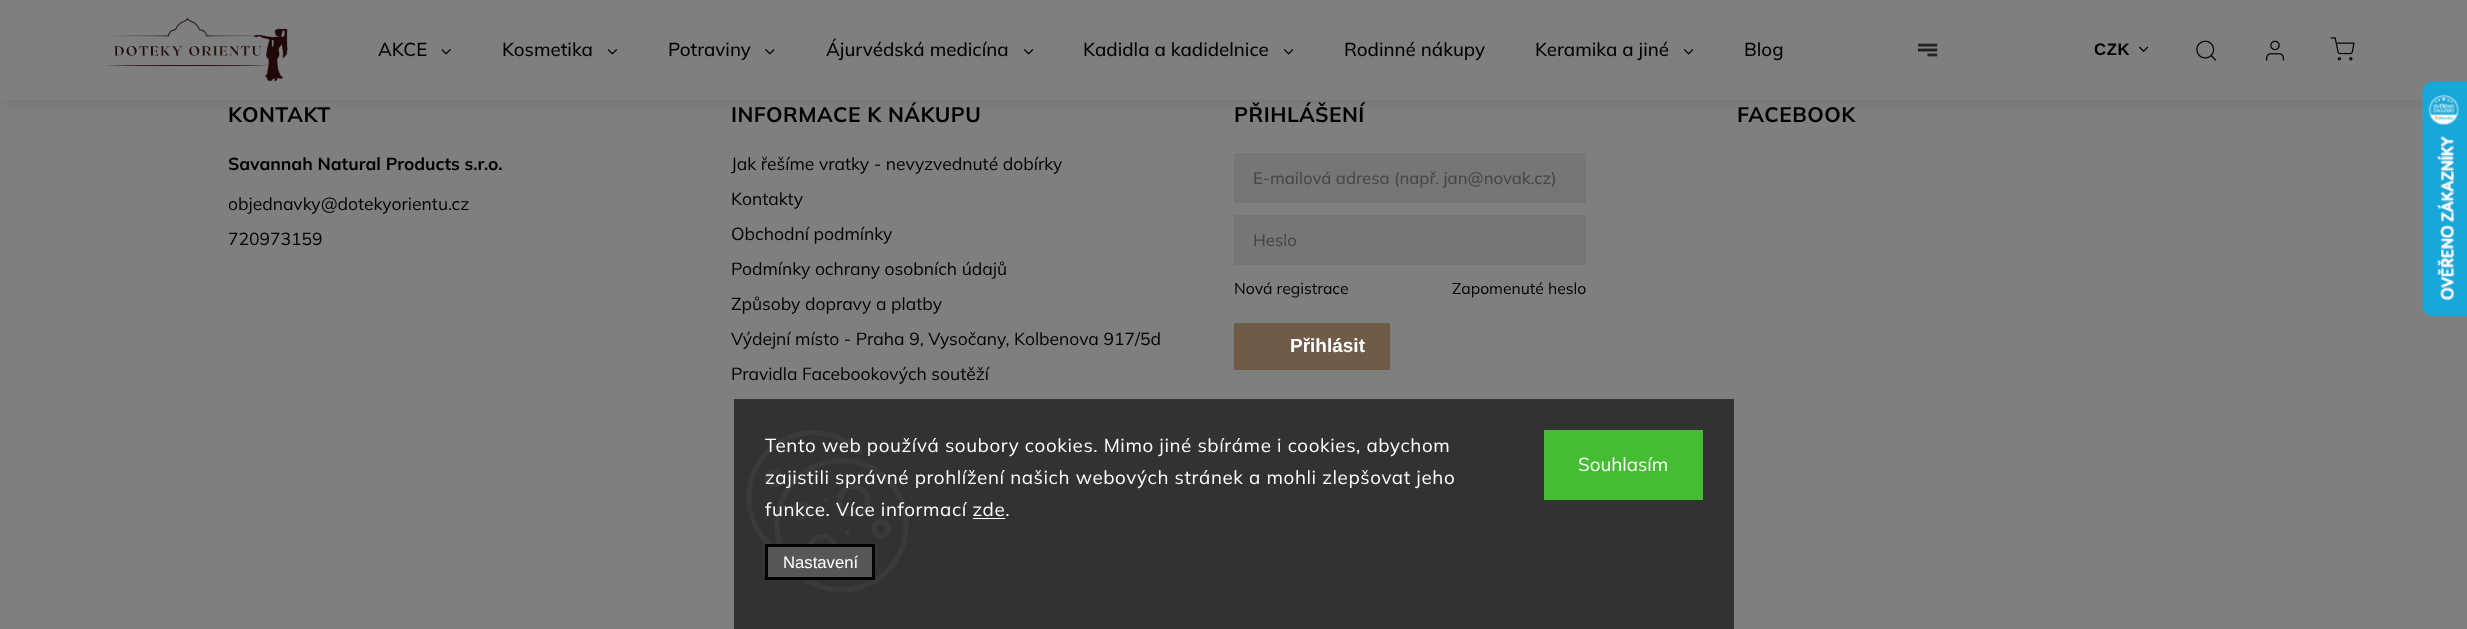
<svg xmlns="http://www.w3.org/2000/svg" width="2467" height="629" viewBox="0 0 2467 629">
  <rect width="100%" height="100%" fill="#fff"/>
  <path d="M0 0h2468v100H0z" fill="#0000001a" filter="blur(9.5px)"/>
  <path d="M0 0h2467v100H0z" fill="#fff"/>
  <image x="441" y="49" width="10" height="6" href="img/1.png"/>
  <image x="607" y="49" width="11" height="6" href="img/2.png"/>
  <image x="765" y="49" width="10" height="6" href="img/3.png"/>
  <image x="1023" y="49" width="11" height="6" href="img/4.png"/>
  <image x="1283" y="49" width="11" height="6" href="img/4.png"/>
  <image x="1683" y="49" width="11" height="6" href="img/4.png"/>
  <image x="1918" y="43" width="20" height="14" href="img/5.png"/>
  <image x="105" y="17" width="183" height="65" href="img/6.png"/>
  <image x="2138" y="46" width="11" height="6" href="img/7.png"/>
  <image x="2196" y="40" width="21" height="21" href="img/8.png"/>
  <image x="2266" y="40" width="18" height="21" href="img/9.png"/>
  <image x="2330" y="37" width="25" height="24" href="img/10.png"/>
  <path d="M1234 153h352v50H1234z" fill="#ececec"/>
  <path d="M1234 215h352v50H1234z" fill="#ececec"/>
  <path d="M1234 323h156v47H1234z" fill="#ddb892"/>
  <path d="M-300 -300h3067v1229H-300z" fill="#00000080" filter="blur(100px)"/>
  <image x="2422" y="81" width="45" height="236" href="img/11.png"/>
  <path d="M734 399h1000v230H734z" fill="#323232"/>
  <image x="746" y="430" width="163" height="162" href="img/12.png"/>
  <path d="M973 518h32v1H973z" fill="#fff"/>
  <path d="M766.5 545.5h107v33H766.5z" fill="#585757" stroke="#000" stroke-width="3"/>
  <path d="M1544 430h159v70H1544z" fill="#44bd32"/>
  <g font-family="Mulish" font-size="18.75" font-weight="500" fill="#000">
    <text x="378" y="56">AKCE</text>
    <text x="502" y="56">Kosmetika</text>
    <text x="668" y="56">Potraviny</text>
    <text x="826" y="56">Ájurvédská medicína</text>
    <text x="1083" y="56">Kadidla a kadidelnice</text>
    <text x="1344" y="56">Rodinné nákupy</text>
    <text x="1535" y="56">Keramika a jiné</text>
    <text x="1744" y="56">Blog</text>
  </g>
  <text x="2094" y="55" font-family="Liberation Sans" font-size="16.7" font-weight="bold" letter-spacing="0.62" fill="#000">CZK</text>
  <text x="228" y="122" font-family="Mulish" font-size="21" font-weight="bold" letter-spacing="0.5" fill="#000">KONTAKT</text>
  <text x="228" y="170" font-family="Mulish" font-size="17.5" font-weight="bold" fill="#000">Savannah Natural Products s.r.o.</text>
  <g font-family="Mulish" font-size="17.5" fill="#000">
    <text x="228" y="210">objednavky@dotekyorientu.cz</text>
    <text x="228" y="245">720973159</text>
  </g>
  <text x="731" y="122" font-family="Mulish" font-size="21" font-weight="bold" letter-spacing="0.5" fill="#000">INFORMACE K NÁKUPU</text>
  <g font-family="Mulish" font-size="17.5" fill="#000">
    <text x="731" y="170">Jak řešíme vratky - nevyzvednuté dobírky</text>
    <text x="731" y="205">Kontakty</text>
    <text x="731" y="240">Obchodní podmínky</text>
    <text x="731" y="275">Podmínky ochrany osobních údajů</text>
    <text x="731" y="310">Způsoby dopravy a platby</text>
    <text x="731" y="345">Výdejní místo - Praha 9, Vysočany, Kolbenova 917/5d</text>
    <text x="731" y="380">Pravidla Facebookových soutěží</text>
  </g>
  <text x="1234" y="122" font-family="Mulish" font-size="21" font-weight="bold" letter-spacing="0.5" fill="#000">PŘIHLÁŠENÍ</text>
  <g font-family="Mulish" font-size="16.7" font-weight="500" fill="#474747">
    <text x="1253" y="184">E-mailová adresa (např. jan@novak.cz)</text>
    <text x="1253" y="246">Heslo</text>
  </g>
  <g font-family="Mulish" font-size="15.75" fill="#000">
    <text x="1234" y="294">Nová registrace</text>
    <text x="1452" y="294">Zapomenuté heslo</text>
  </g>
  <text x="1290" y="352" font-family="Liberation Sans" font-size="19" font-weight="bold" fill="#fff">Přihlásit</text>
  <text x="1737" y="122" font-family="Mulish" font-size="21" font-weight="bold" letter-spacing="0.5" fill="#000">FACEBOOK</text>
  <g font-family="Mulish" font-size="18.75" letter-spacing="0.62" fill="#fff">
    <text x="765" y="452">Tento web používá soubory cookies. Mimo jiné sbíráme i cookies, abychom</text>
    <text x="765" y="484">zajistili správné prohlížení našich webových stránek a mohli zlepšovat jeho</text>
    <text x="765" y="516">funkce. Více informací zde.</text>
  </g>
  <text x="783" y="568" font-family="Liberation Sans" font-size="16.7" fill="#fff">Nastavení</text>
  <text x="1578" y="471" font-family="Mulish" font-size="18.75" fill="#fff">Souhlasím</text>
</svg>
